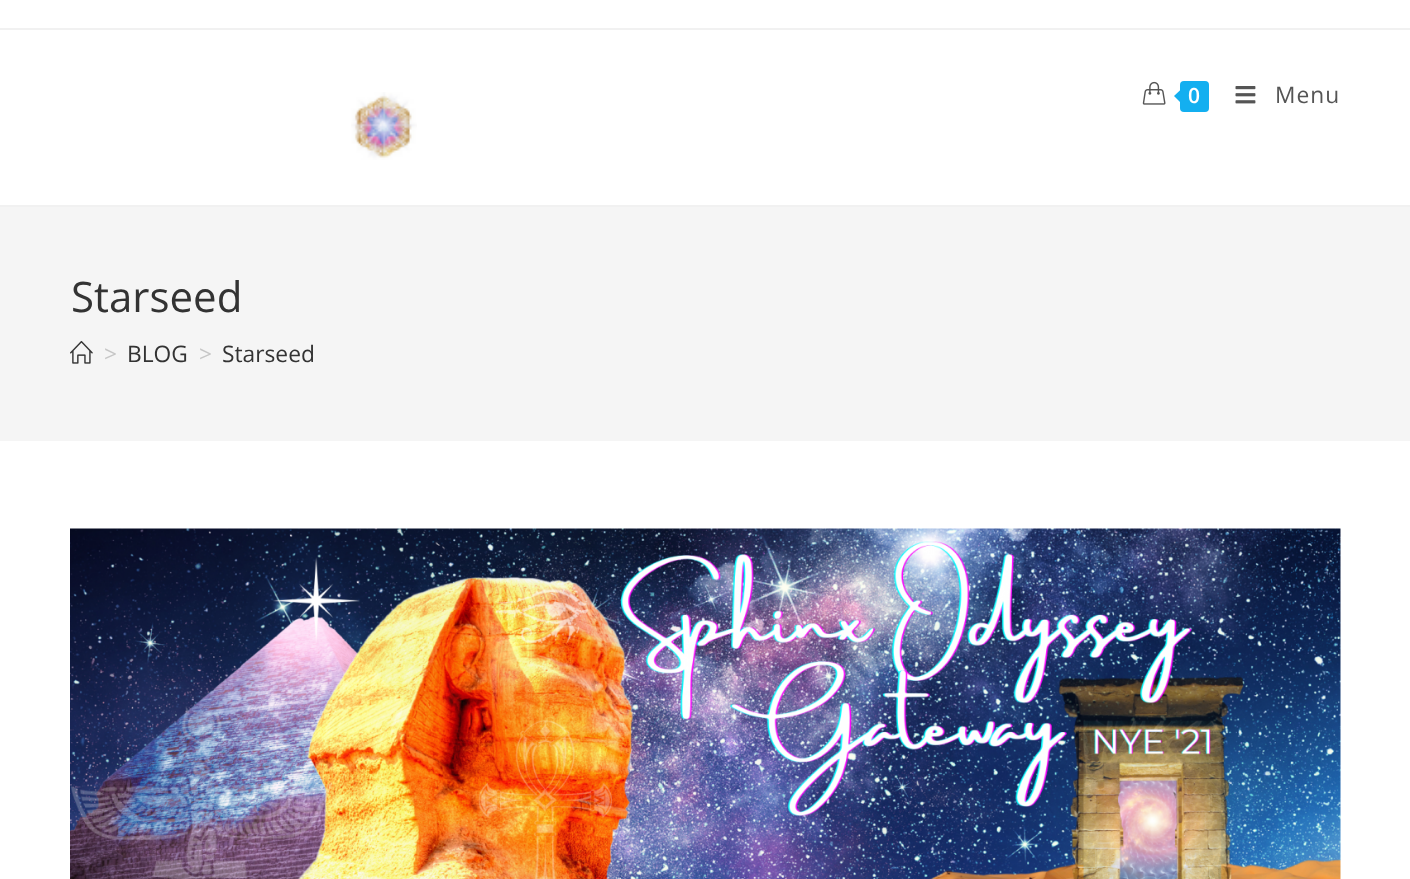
<svg xmlns="http://www.w3.org/2000/svg" width="1410" height="879" viewBox="0 0 1410 879">
  <rect width="100%" height="100%" fill="#fff"/>
  <path d="M0 28h1410v2H0z" fill="#f1f1f1"/>
  <path d="M0 205h1410v2H0z" fill="#f1f1f1"/>
  <image x="351" y="92" width="66" height="68" href="img/1.png"/>
  <image x="1142" y="81" width="24" height="24" href="img/2.png"/>
  <rect x="1180" y="81" width="29" height="31" rx="4" fill="#13aff0"/>
  <path d="M1183 87.5V105L1174 96Z" fill="#13aff0"/>
  <image x="1235" y="86" width="21" height="18" href="img/3.png"/>
  <path d="M0 207h1410v234H0z" fill="#f5f5f5"/>
  <image x="70" y="340" width="23" height="24" href="img/4.png"/>
  <image x="70" y="528" width="1271" height="351" href="img/5.png"/>
  <text x="1188" y="103" font-family="Open Sans" font-size="21" font-weight="600" letter-spacing="1" fill="#fff">0</text>
  <text x="1275" y="103" font-family="Open Sans" font-size="22.75" letter-spacing="1" fill="#555">Menu</text>
  <text x="71" y="312" font-family="Open Sans" font-size="42" fill="#333">Starseed</text>
  <text x="104" y="362" font-family="Open Sans" font-size="22.75" fill="#c6c6c6">&gt;</text>
  <text x="127" y="362" font-family="Open Sans" font-size="22.75" fill="#333">BLOG</text>
  <text x="199" y="362" font-family="Open Sans" font-size="22.75" fill="#c6c6c6">&gt;</text>
  <text x="222" y="362" font-family="Open Sans" font-size="22.75" fill="#333">Starseed</text>
</svg>
